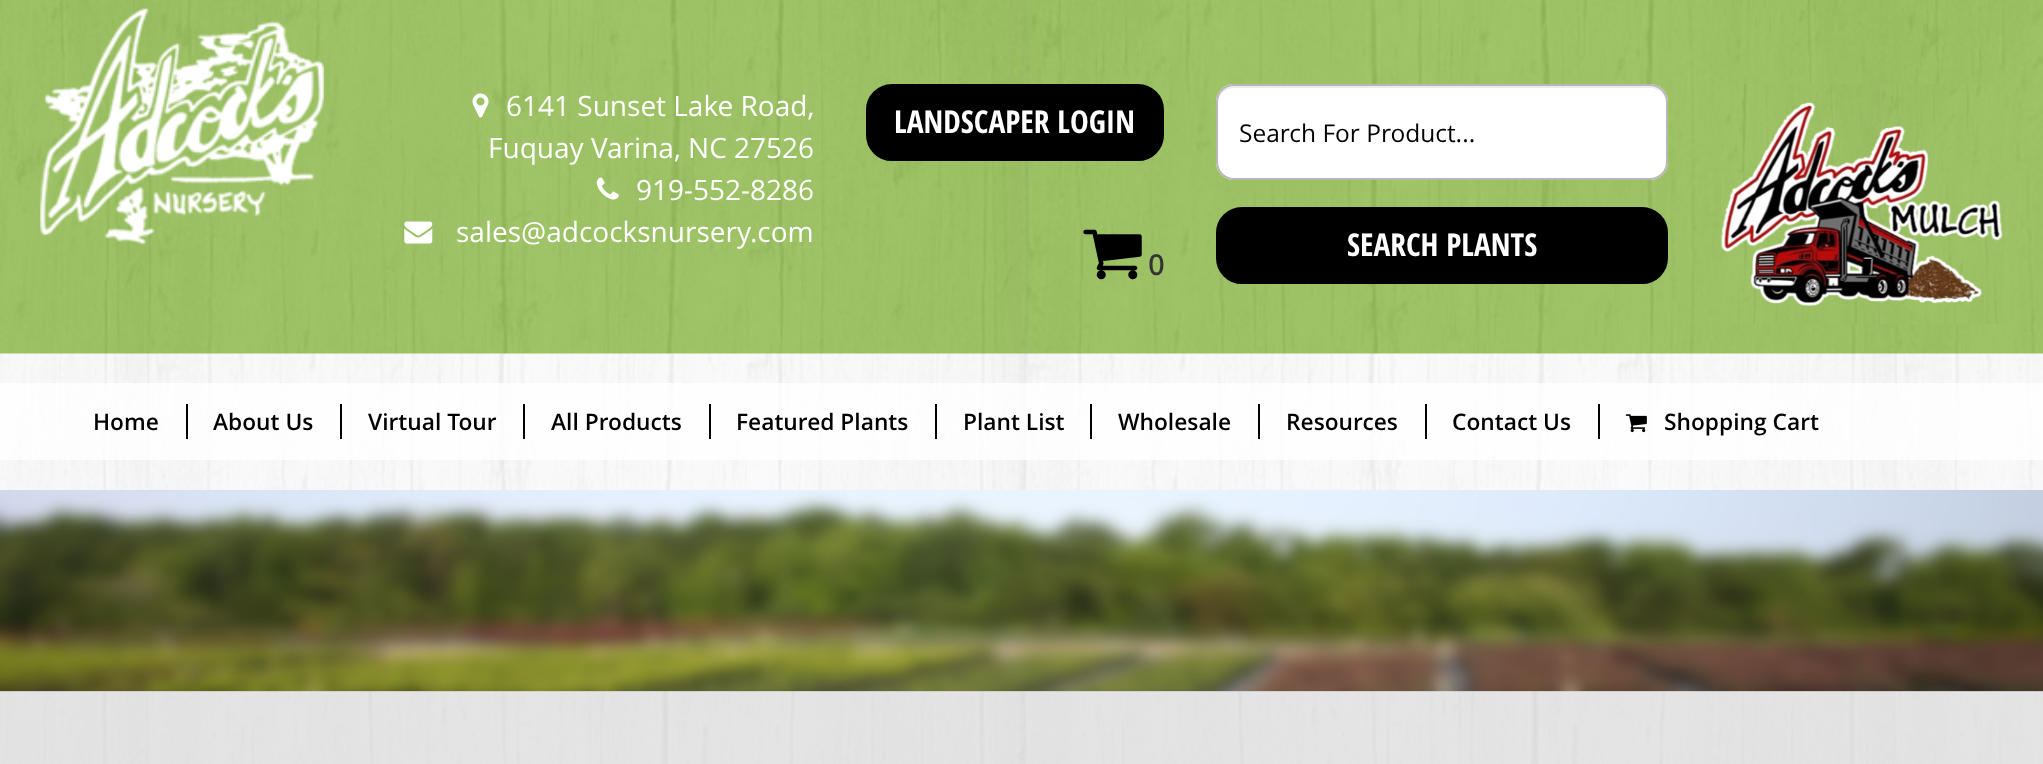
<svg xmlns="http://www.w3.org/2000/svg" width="2043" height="764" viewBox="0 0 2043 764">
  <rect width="100%" height="100%" fill="#fdfdfd"/>
  <image x="0" y="353" width="2043" height="411" href="img/1.png"/>
  <image x="0" y="0" width="2043" height="354" href="img/2.png"/>
  <image x="40" y="8" width="284" height="237" href="img/3.png"/>
  <image x="472" y="93" width="17" height="25" href="img/4.png"/>
  <image x="596" y="177" width="23" height="23" href="img/5.png"/>
  <image x="404" y="221" width="29" height="23" href="img/6.png"/>
  <rect x="867" y="85" width="296" height="75" rx="25" fill="#000" stroke="#000" stroke-width="2"/>
  <image x="1083" y="229" width="59" height="51" href="img/7.png"/>
  <rect x="1216" y="84" width="452" height="96" rx="18" fill="#fff"/>
  <path d="M1234 88H1650C1659 88 1666 95 1666 103C1666 95 1661 88 1653 86H1234C1225 86 1218 94 1218 103C1218 95 1225 88 1234 88Z" fill="#ececec"/>
  <rect x="1217" y="85" width="450" height="94" rx="17" fill="none" stroke="#b7b7b7" stroke-width="2"/>
  <rect x="1217" y="208" width="450" height="75" rx="25" fill="#000" stroke="#000" stroke-width="2"/>
  <image x="1721" y="84" width="283" height="240" href="img/8.png"/>
  <path d="M0 383h2043v77H0z" fill="#ffffffcc"/>
  <path d="M186 404h2v35H186z" fill="#010100"/>
  <path d="M340 404h2v35H340z" fill="#010100"/>
  <path d="M523 404h2v35H523z" fill="#010100"/>
  <path d="M709 404h2v35H709z" fill="#010100"/>
  <path d="M935 404h2v35H935z" fill="#010100"/>
  <path d="M1090 404h2v35H1090z" fill="#010100"/>
  <path d="M1258 404h2v35H1258z" fill="#010100"/>
  <path d="M1425 404h2v35H1425z" fill="#010100"/>
  <path d="M1598 404h2v35H1598z" fill="#010100"/>
  <image x="1625" y="414" width="22" height="19" href="img/9.png"/>
  <image x="0" y="490" width="2043" height="202" href="img/10.png"/>
  <path d="M0 691h2043v73H0z" fill="#cfcfcf80"/>
  <g font-family="Open Sans" font-size="28" fill="#fff">
    <text x="506" y="116">6141 Sunset Lake Road,</text>
    <text x="488" y="158">Fuquay Varina, NC 27526</text>
    <text x="636" y="200">919-552-8286</text>
    <text x="456" y="242">sales@adcocksnursery.com</text>
  </g>
  <text x="894" y="133" font-family="Open Sans Condensed" font-size="31.5" font-weight="bold" fill="#fff">LANDSCAPER LOGIN</text>
  <text x="1148" y="275" font-family="Open Sans" font-size="28" font-weight="bold" fill="#333">0</text>
  <text x="1239" y="142" font-family="Open Sans" font-size="24.5" fill="#000">Search For Product...</text>
  <text x="1347" y="256" font-family="Open Sans Condensed" font-size="31.5" font-weight="bold" fill="#fff">SEARCH PLANTS</text>
  <g font-family="Open Sans" font-size="22.75" font-weight="600" fill="#000">
    <text x="93" y="430">Home</text>
    <text x="213" y="430">About Us</text>
    <text x="368" y="430">Virtual Tour</text>
    <text x="551" y="430">All Products</text>
    <text x="736" y="430">Featured Plants</text>
    <text x="963" y="430">Plant List</text>
    <text x="1118" y="430">Wholesale</text>
    <text x="1286" y="430">Resources</text>
    <text x="1452" y="430">Contact Us</text>
    <text x="1664" y="430">Shopping Cart</text>
  </g>
</svg>
